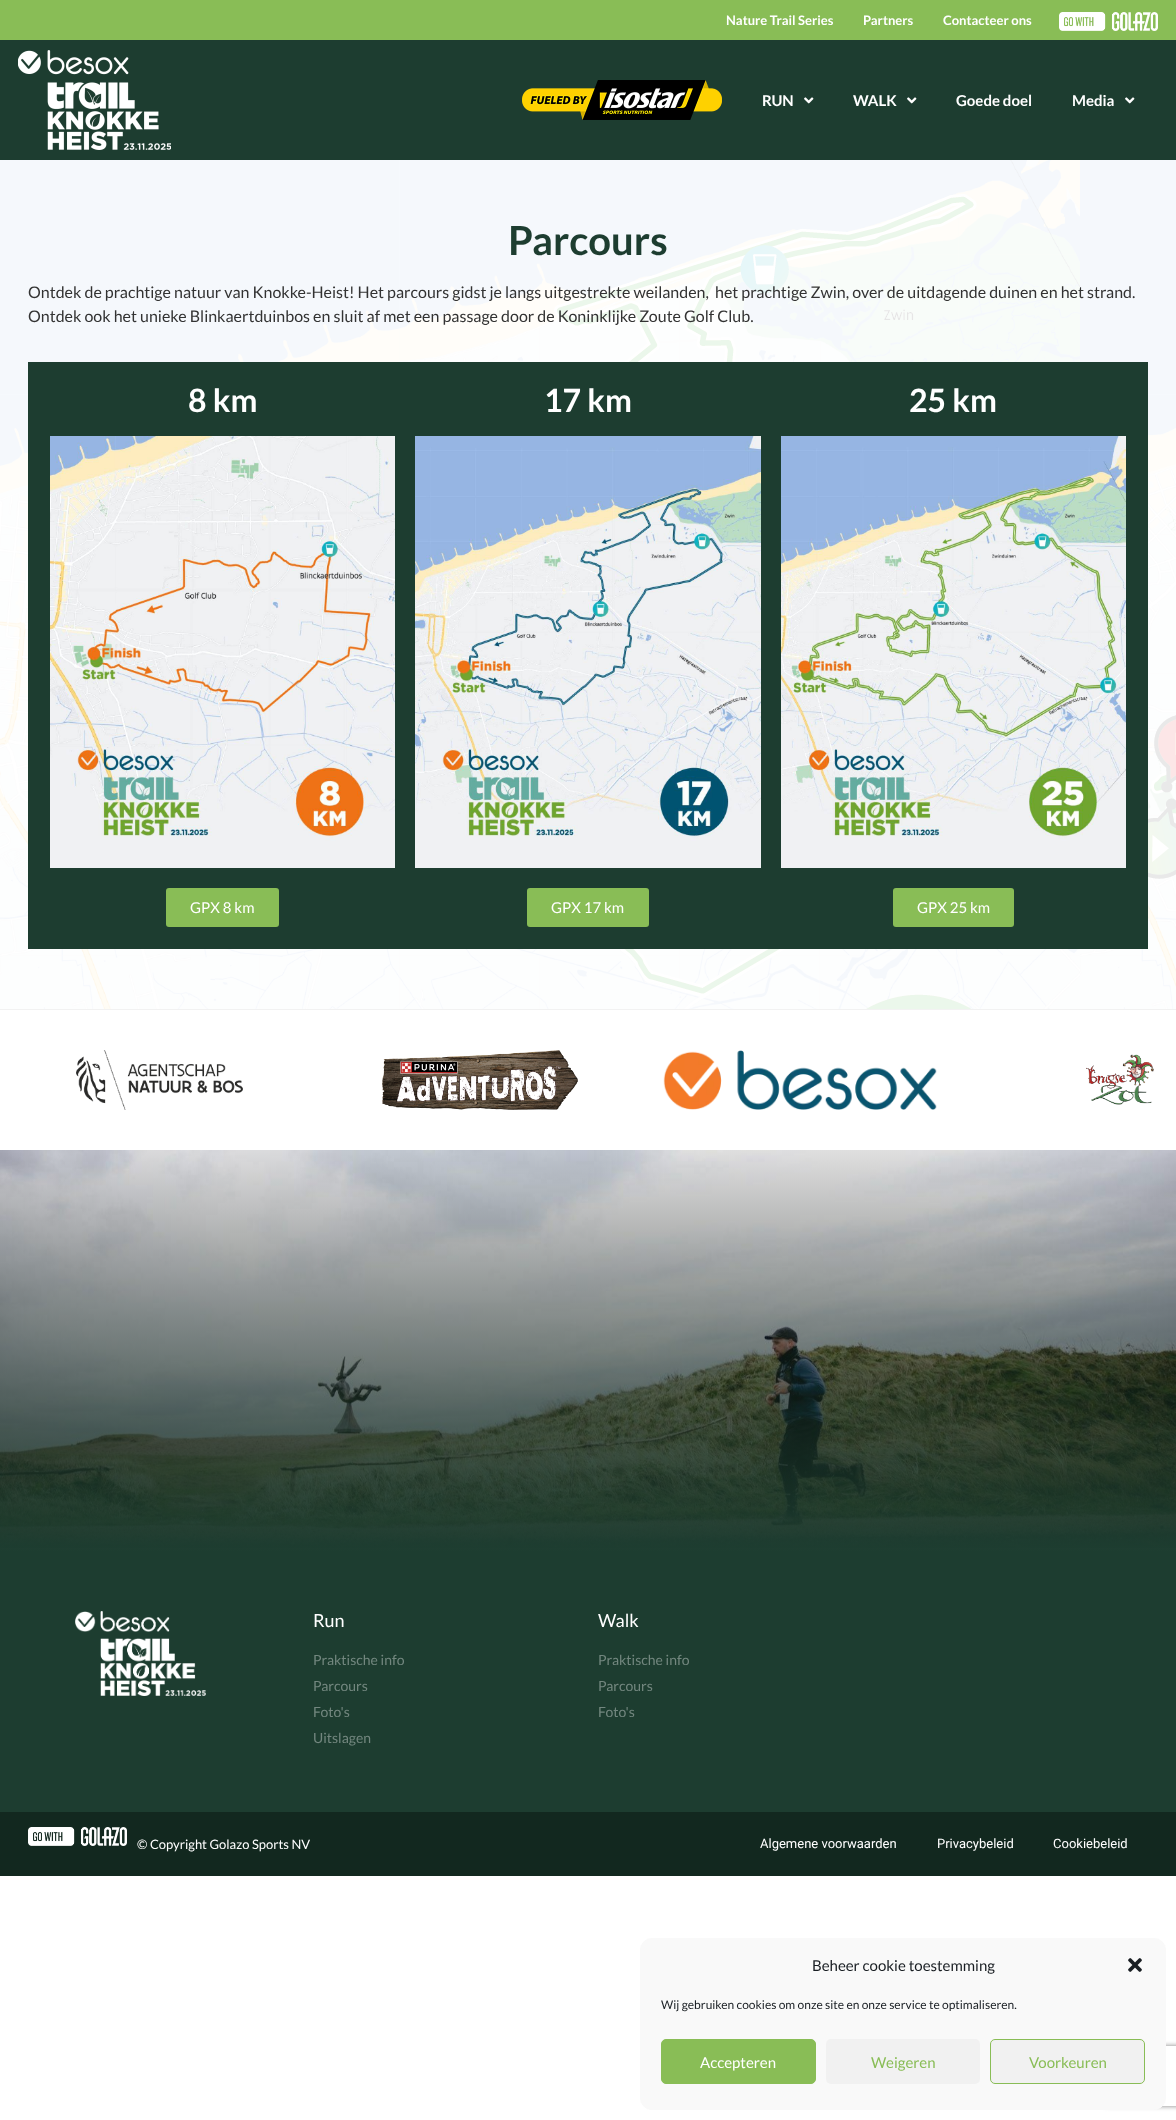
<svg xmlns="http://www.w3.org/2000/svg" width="1176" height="2120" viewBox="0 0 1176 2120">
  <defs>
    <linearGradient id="g1" gradientUnits="userSpaceOnUse" x1="588" y1="1150" x2="588" y2="1551"><stop offset="0" stop-color="#020101" stop-opacity="0.12"/><stop offset="1" stop-color="#1d3d30"/></linearGradient>
    <clipPath id="clip1"><path d="M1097 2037H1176V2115H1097ZM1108 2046H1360C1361 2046 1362 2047 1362 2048V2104C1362 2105 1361 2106 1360 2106H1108C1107 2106 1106 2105 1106 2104V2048C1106 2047 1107 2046 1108 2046Z" clip-rule="evenodd"/></clipPath>
  </defs>
  <rect width="100%" height="100%" fill="#fff"/>
  <path d="M0 0h1176v40H0z" fill="#89bd56"/>
  <image x="1059" y="12" width="99" height="19" href="img/1.png"/>
  <path d="M0 40h1176v120H0z" fill="#1d3d30"/>
  <image x="18" y="50" width="153" height="100" href="img/2.png"/>
  <image x="522" y="80" width="200" height="40" href="img/3.png"/>
  <image x="804" y="97" width="10" height="7" href="img/4.png"/>
  <image x="907" y="97" width="10" height="7" href="img/4.png"/>
  <image x="1125" y="97" width="10" height="7" href="img/4.png"/>
  <image x="0" y="160" width="1176" height="849" href="img/5.png"/>
  <path d="M28 362h1120v587H28z" fill="#1d3d30"/>
  <image x="50" y="436" width="345" height="432" href="img/6.png"/>
  <rect x="166" y="888" width="113" height="39" rx="3" fill="#89bd56"/>
  <image x="415" y="436" width="346" height="432" href="img/7.png"/>
  <rect x="527" y="888" width="122" height="39" rx="3" fill="#89bd56"/>
  <image x="781" y="436" width="345" height="432" href="img/8.png"/>
  <rect x="893" y="888" width="121" height="39" rx="3" fill="#89bd56"/>
  <path d="M0 1009h1176v1H0z" fill="#f2f2f2"/>
  <image x="76" y="1050" width="167" height="60" href="img/9.png"/>
  <image x="382" y="1050" width="196" height="60" href="img/10.png"/>
  <image x="663" y="1050" width="274" height="60" href="img/11.png"/>
  <image x="1086" y="1054" width="68" height="51" href="img/12.png"/>
  <image x="0" y="1150" width="1176" height="398" href="img/13.png"/>
  <path d="M0 1150h1176v401H0z" fill="url(#g1)"/>
  <path d="M0 1551h1176v261H0z" fill="#1d3d30"/>
  <image x="75" y="1611" width="131" height="85" href="img/14.png"/>
  <path d="M0 1812h1176v64H0z" fill="#12281f"/>
  <image x="28" y="1827" width="99" height="19" href="img/15.png"/>
  <g clip-path="url(#clip1)">
    <rect x="1106" y="2046" width="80" height="60" rx="2" fill="#808080" filter="blur(2.5px)"/>
  </g>
  <rect x="640.5" y="1938.5" width="525" height="171" rx="11.5" fill="#f9f9f9" stroke="#f9f9f9"/>
  <image x="1128" y="1958" width="14" height="14" href="img/16.png"/>
  <rect x="661.5" y="2039.5" width="154" height="44" rx="4.5" fill="#89bd56" stroke="#89bd56"/>
  <rect x="826" y="2039" width="154" height="45" rx="5" fill="#f1f1f1"/>
  <rect x="990.5" y="2039.5" width="154" height="44" rx="4.5" fill="#f1f1f1" stroke="#89bd56"/>
  <g font-family="Lato" font-size="13" font-weight="bold" fill="#fff">
    <text x="726" y="25">Nature Trail Series</text>
    <text x="863" y="25">Partners</text>
    <text x="943" y="25">Contacteer ons</text>
  </g>
  <g font-family="Lato" font-size="15" font-weight="bold" fill="#fff">
    <text x="762" y="106">RUN</text>
    <text x="853" y="106">WALK</text>
    <text x="956" y="106">Goede doel</text>
    <text x="1072" y="106">Media</text>
  </g>
  <text x="508" y="255" font-family="Lato" font-size="40" font-weight="bold" fill="#1d3d30">Parcours</text>
  <g font-family="Lato" font-size="16" fill="#333">
    <text x="28" y="298" xml:space="preserve">Ontdek de prachtige natuur van Knokke-Heist! Het parcours gidst je langs uitgestrekte weilanden,  het prachtige Zwin, over de uitdagende duinen en het strand.</text>
    <text x="28" y="322">Ontdek ook het unieke Blinkaertduinbos en sluit af met een passage door de Koninklijke Zoute Golf Club.</text>
  </g>
  <text x="188" y="412" font-family="Lato" font-size="32" font-weight="bold" fill="#fff">8 km</text>
  <text x="190" y="913" font-family="Lato" font-size="15" fill="#fff">GPX 8 km</text>
  <text x="544" y="412" font-family="Lato" font-size="32" font-weight="bold" fill="#fff">17 km</text>
  <text x="551" y="913" font-family="Lato" font-size="15" fill="#fff">GPX 17 km</text>
  <text x="909" y="412" font-family="Lato" font-size="32" font-weight="bold" fill="#fff">25 km</text>
  <text x="917" y="913" font-family="Lato" font-size="15" fill="#fff">GPX 25 km</text>
  <text x="313" y="1627" font-family="Lato" font-size="18" fill="#fff">Run</text>
  <g font-family="Lato" font-size="14" fill="#73877f">
    <text x="313" y="1665">Praktische info</text>
    <text x="313" y="1691">Parcours</text>
    <text x="313" y="1717">Foto's</text>
    <text x="313" y="1743">Uitslagen</text>
  </g>
  <text x="598" y="1627" font-family="Lato" font-size="18" fill="#fff">Walk</text>
  <g font-family="Lato" font-size="14" fill="#73877f">
    <text x="598" y="1665">Praktische info</text>
    <text x="598" y="1691">Parcours</text>
    <text x="598" y="1717">Foto's</text>
  </g>
  <text x="137" y="1849" font-family="Lato" font-size="13" fill="#fff">© Copyright Golazo Sports NV</text>
  <g font-family="Roboto" font-size="13" fill="#fff">
    <text x="760" y="1848">Algemene voorwaarden</text>
    <text x="937" y="1848">Privacybeleid</text>
    <text x="1053" y="1848">Cookiebeleid</text>
  </g>
  <text x="812" y="1971" font-family="Lato" font-size="15" fill="#191e23">Beheer cookie toestemming</text>
  <text x="661" y="2009" font-family="Lato" font-size="12" fill="#191e23">Wij gebruiken cookies om onze site en onze service te optimaliseren.</text>
  <text x="700" y="2068" font-family="Lato" font-size="15" fill="#fff">Accepteren</text>
  <g font-family="Lato" font-size="15" fill="#89bd56">
    <text x="871" y="2068">Weigeren</text>
    <text x="1029" y="2068">Voorkeuren</text>
  </g>
</svg>
